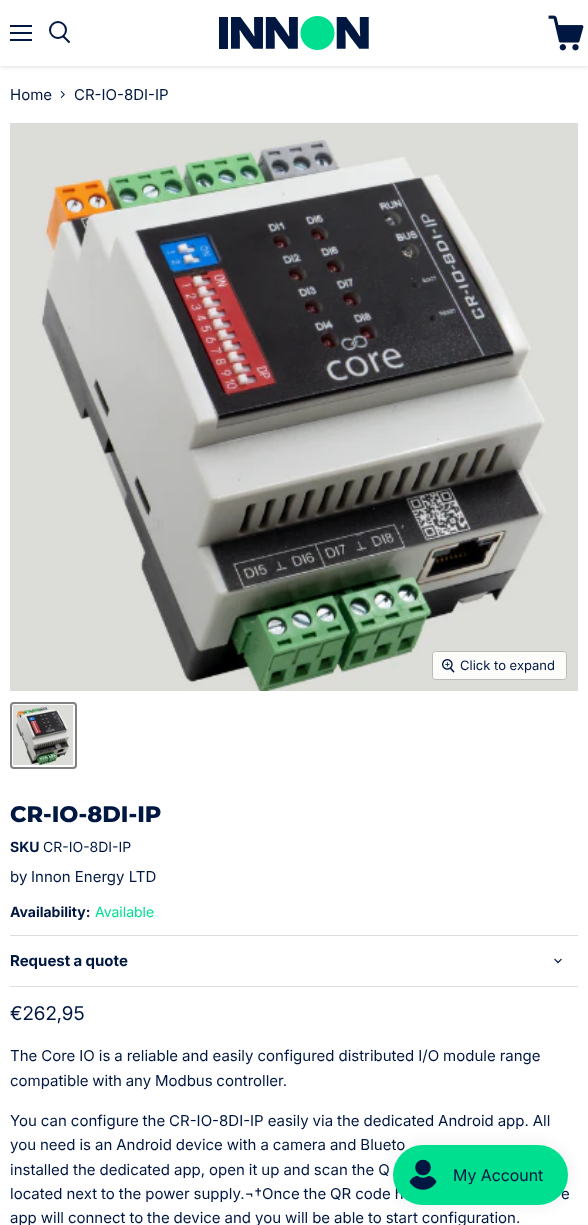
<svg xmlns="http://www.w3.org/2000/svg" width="588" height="1225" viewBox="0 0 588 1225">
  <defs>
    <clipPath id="clip1"><path d="M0 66h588v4H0z"/></clipPath>
  </defs>
  <rect width="100%" height="100%" fill="#fff"/>
  <g clip-path="url(#clip1)">
    <path d="M0 1h588v66H0z" fill="#80808040" filter="blur(2px)"/>
  </g>
  <path d="M10 25h22v2H10z" fill="#001741"/>
  <path d="M10 32h22v2H10z" fill="#001741"/>
  <path d="M10 39h22v2H10z" fill="#001741"/>
  <path d="M69 42L63.5 36.5" fill="none" stroke="#001741" stroke-width="2" stroke-linecap="round"/>
  <circle cx="58" cy="30" r="8" fill="none" stroke="#001741" stroke-width="2"/>
  <image x="219" y="16" width="150" height="34" href="img/1.png"/>
  <image x="548" y="15" width="36" height="36" href="img/2.png"/>
  <image x="60" y="91" width="5" height="8" href="img/3.png"/>
  <image x="10" y="123" width="568" height="568" href="img/4.png"/>
  <rect x="432.5" y="651.5" width="134" height="28" rx="3.5" fill="none" stroke="#bbbcb8"/>
  <rect x="433" y="652" width="133" height="27" rx="3" fill="#ffffffe6"/>
  <image x="442" y="659" width="13" height="14" href="img/5.png"/>
  <rect x="11" y="703" width="65" height="65" rx="3" fill="none" stroke="#818181" stroke-width="2"/>
  <image x="13" y="705" width="60" height="60" href="img/6.png"/>
  <path d="M10 935h568v1H10z" fill="#ddd"/>
  <path d="M10 986h568v1H10z" fill="#ddd"/>
  <image x="554" y="958" width="8" height="6" href="img/7.png"/>
  <rect x="393" y="1145" width="175" height="60" rx="30" fill="#00000014" filter="blur(7.5px)"/>
  <g font-family="Inter" font-size="15" fill="#001741">
    <text x="10" y="100">Home</text>
    <text x="74" y="100">CR-IO-8DI-IP</text>
  </g>
  <text x="460" y="670" font-family="Inter" font-size="13" fill="#001741">Click to expand</text>
  <text x="10" y="822" font-family="Montserrat" font-size="22.5" font-weight="800" fill="#001741">CR-IO-8DI-IP</text>
  <text x="10" y="852" font-family="Inter" font-size="14" font-weight="bold" fill="#001741">SKU</text>
  <text x="43" y="852" font-family="Inter" font-size="14" fill="#001741">CR-IO-8DI-IP</text>
  <g font-family="Inter" font-size="15" fill="#001741">
    <text x="10" y="882">by</text>
    <text x="31" y="882">Innon Energy LTD</text>
  </g>
  <text x="10" y="917" font-family="Inter" font-size="14" font-weight="bold" fill="#001741">Availability:</text>
  <text x="95" y="917" font-family="Inter" font-size="14" fill="#00df8f">Available</text>
  <text x="10" y="966" word-spacing="-0.25" font-family="Inter" font-size="15" font-weight="bold" fill="#001741">Request a quote</text>
  <text x="10" y="1020" font-family="'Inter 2'" font-size="19" fill="#001741">€262,95</text>
  <g font-family="Inter" font-size="15" fill="#001741">
    <text x="10" y="1061" word-spacing="-0.25">The Core IO is a reliable and easily configured distributed I/O module range</text>
    <text x="10" y="1086" word-spacing="-0.5">compatible with any Modbus controller.</text>
    <text x="10" y="1126" word-spacing="-0.25">You can configure the CR-IO-8DI-IP easily via the dedicated Android app. All</text>
    <text x="10" y="1150" word-spacing="-0.25">you need is an Android device with a camera and Blueto</text>
    <text x="10" y="1175" word-spacing="-0.25">installed the dedicated app, open it up and scan the Q</text>
    <text x="10" y="1199" word-spacing="-0.25">located next to the power supply.¬†</text>
    <text x="262" y="1199" word-spacing="-0.25">Once the QR code h</text>
    <text x="561" y="1199" word-spacing="-0.25">e</text>
    <text x="10" y="1223" word-spacing="-0.25">app will connect to the device and you will be able to start configuration.</text>
  </g>
  <rect x="393" y="1145" width="175" height="60" rx="30" fill="#00df8f"/>
  <image x="409" y="1159" width="28" height="31" href="img/8.png"/>
  <text x="453" y="1181" font-family="'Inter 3'" font-size="16" fill="#001741">My Account</text>
</svg>
